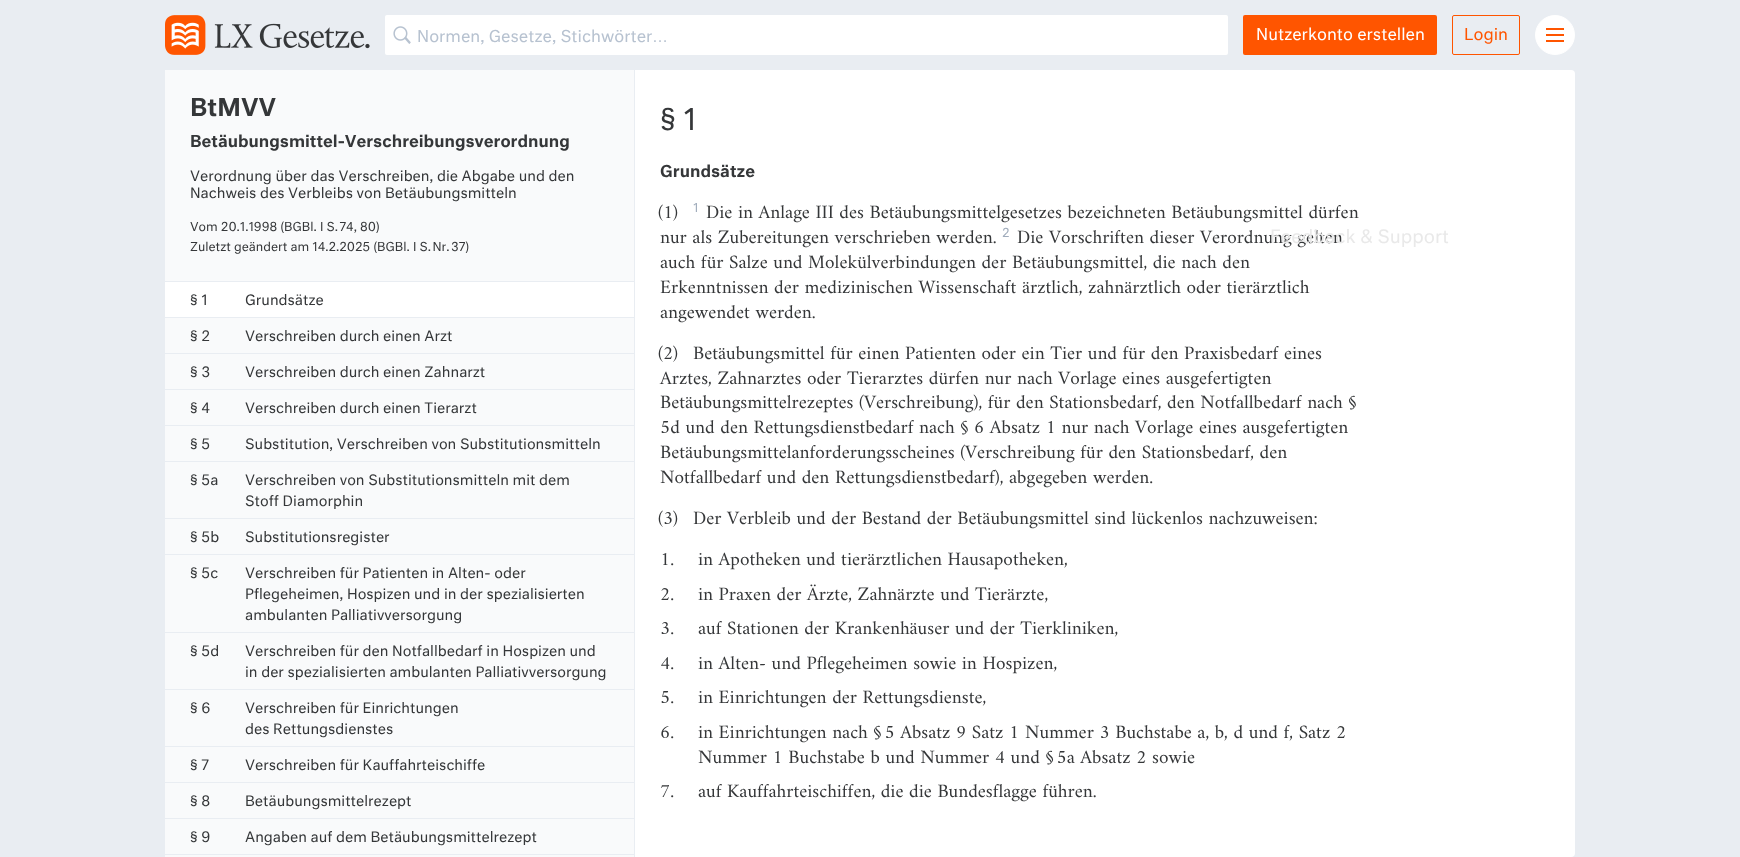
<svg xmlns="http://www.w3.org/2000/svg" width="1740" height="857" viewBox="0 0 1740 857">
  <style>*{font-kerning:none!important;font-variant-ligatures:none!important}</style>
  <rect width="100%" height="100%" fill="#e9edf2"/>
  <image x="165" y="15" width="205" height="40" href="img/1.png"/>
  <rect x="385" y="15" width="843" height="40" rx="2" fill="#fff"/>
  <image x="393" y="26" width="18" height="18" href="img/2.png"/>
  <rect x="1243" y="15" width="194" height="40" rx="2" fill="#f50"/>
  <rect x="1452.5" y="15.5" width="67" height="39" rx="1.5" fill="none" stroke="#f50"/>
  <circle cx="1555" cy="35" r="19.5" fill="#fff" stroke="#fff"/>
  <path d="M1546 40h18v2H1546z" fill="#f50"/>
  <path d="M1546 34h18v2H1546z" fill="#f50"/>
  <path d="M1546 28h18v2H1546z" fill="#f50"/>
  <rect x="165" y="70" width="1410" height="787" rx="4" fill="#fff"/>
  <path d="M165 70h469v787H165z" fill="#f9fafb"/>
  <path d="M634 70h1v787H634z" fill="#e9edf2"/>
  <path d="M165 282h469v35H165z" fill="#fff"/>
  <path d="M165 281h469v1H165z" fill="#e9edf2"/>
  <path d="M165 317h469v1H165z" fill="#e9edf2"/>
  <path d="M165 353h469v1H165z" fill="#e9edf2"/>
  <path d="M165 389h469v1H165z" fill="#e9edf2"/>
  <path d="M165 425h469v1H165z" fill="#e9edf2"/>
  <path d="M165 461h469v1H165z" fill="#e9edf2"/>
  <path d="M165 518h469v1H165z" fill="#e9edf2"/>
  <path d="M165 554h469v1H165z" fill="#e9edf2"/>
  <path d="M165 632h469v1H165z" fill="#e9edf2"/>
  <path d="M165 689h469v1H165z" fill="#e9edf2"/>
  <path d="M165 746h469v1H165z" fill="#e9edf2"/>
  <path d="M165 782h469v1H165z" fill="#e9edf2"/>
  <path d="M165 818h469v1H165z" fill="#e9edf2"/>
  <path d="M165 854h469v1H165z" fill="#e9edf2"/>
  <text x="417" y="42" font-family="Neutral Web" font-size="16" fill="#b7c2d0">Normen, Gesetze, Stichwörter</text>
  <text x="652" y="42" font-family="Liberation Sans" font-size="16" fill="#b7c2d0">…</text>
  <text x="1256" y="40" font-family="Neutral Web" font-size="16" fill="#fff">Nutzerkonto erstellen</text>
  <text x="1464" y="40" font-family="Neutral Web" font-size="16" fill="#f50">Login</text>
  <text x="190" y="116" font-family="Neutral Web" font-size="24" font-weight="500" fill="#353739">BtMVV</text>
  <text x="190" y="147" font-family="Neutral Web" font-size="16" font-weight="500" fill="#353739">Betäubungsmittel-Verschreibungsverordnung</text>
  <g font-family="Neutral Web" font-size="14" fill="#353739">
    <text x="190" y="181">Verordnung über das Verschreiben, die Abgabe und den</text>
    <text x="190" y="198">Nachweis des Verbleibs von Betäubungsmitteln</text>
  </g>
  <g font-family="Neutral Web" font-size="12" fill="#353739">
    <text x="190" y="231">Vom 20.1.1998 (BGBl. I S. 74, 80)</text>
    <text x="190" y="251">Zuletzt geändert am 14.2.2025 (BGBl. I S. Nr. 37)</text>
  </g>
  <g font-family="Neutral Web" font-size="14" fill="#353739">
    <text x="190" y="305">§ 1</text>
    <text x="245" y="305">Grundsätze</text>
    <text x="190" y="341">§ 2</text>
    <text x="245" y="341">Verschreiben durch einen Arzt</text>
    <text x="190" y="377">§ 3</text>
    <text x="245" y="377">Verschreiben durch einen Zahnarzt</text>
    <text x="190" y="413">§ 4</text>
    <text x="245" y="413">Verschreiben durch einen Tierarzt</text>
    <text x="190" y="449">§ 5</text>
    <text x="245" y="449">Substitution, Verschreiben von Substitutionsmitteln</text>
    <text x="190" y="485">§ 5a</text>
    <text x="245" y="485">Verschreiben von Substitutionsmitteln mit dem</text>
    <text x="245" y="506">Stoff Diamorphin</text>
    <text x="190" y="542">§ 5b</text>
    <text x="245" y="542">Substitutionsregister</text>
    <text x="190" y="578">§ 5c</text>
    <text x="245" y="578">Verschreiben für Patienten in Alten- oder</text>
    <text x="245" y="599">Pflegeheimen, Hospizen und in der spezialisierten</text>
    <text x="245" y="620">ambulanten Palliativversorgung</text>
    <text x="190" y="656">§ 5d</text>
    <text x="245" y="656">Verschreiben für den Notfallbedarf in Hospizen und</text>
    <text x="245" y="677">in der spezialisierten ambulanten Palliativversorgung</text>
    <text x="190" y="713">§ 6</text>
    <text x="245" y="713">Verschreiben für Einrichtungen</text>
    <text x="245" y="734">des Rettungsdienstes</text>
    <text x="190" y="770">§ 7</text>
    <text x="245" y="770">Verschreiben für Kauffahrteischiffe</text>
    <text x="190" y="806">§ 8</text>
    <text x="245" y="806">Betäubungsmittelrezept</text>
    <text x="190" y="842">§ 9</text>
    <text x="245" y="842">Angaben auf dem Betäubungsmittelrezept</text>
  </g>
  <text x="660" y="130" font-family="Neutral Web" font-size="29" fill="#353739">§ 1</text>
  <text x="660" y="177" font-family="Neutral Web" font-size="16" font-weight="500" fill="#353739">Grundsätze</text>
  <text x="658" y="218" font-family="Amiri" font-size="19.2" fill="#353739">(1)</text>
  <text x="693" y="212" font-family="Neutral Web" font-size="12" fill="#9fabbb">1</text>
  <g font-family="Amiri" font-size="19.2" fill="#353739">
    <text x="706" y="218">Die in Anlage III des Betäubungsmittelgesetzes bezeichneten Betäubungsmittel dürfen</text>
    <text x="660" y="243">nur als Zubereitungen verschrieben werden.</text>
  </g>
  <text x="1002" y="237" font-family="Neutral Web" font-size="12" fill="#9fabbb">2</text>
  <text x="1017" y="243" font-family="Amiri" font-size="19.2" fill="#353739">Die Vorschriften dieser Verordnung gelten</text>
  <text x="1270" y="243" font-family="Neutral Web" font-size="18" fill="#e9e9e9">Feedback &amp; Support</text>
  <g font-family="Amiri" font-size="19.2" fill="#353739">
    <text x="660" y="268">auch für Salze und Molekülverbindungen der Betäubungsmittel, die nach den</text>
    <text x="660" y="293">Erkenntnissen der medizinischen Wissenschaft ärztlich, zahnärztlich oder tierärztlich</text>
    <text x="660" y="318">angewendet werden.</text>
    <text x="658" y="359">(2)</text>
    <text x="693" y="359">Betäubungsmittel für einen Patienten oder ein Tier und für den Praxisbedarf eines</text>
    <text x="660" y="384">Arztes, Zahnarztes oder Tierarztes dürfen nur nach Vorlage eines ausgefertigten</text>
    <text x="660" y="408">Betäubungsmittelrezeptes (Verschreibung), für den Stationsbedarf, den Notfallbedarf nach §</text>
    <text x="660" y="433">5d und den Rettungsdienstbedarf nach § 6 Absatz 1 nur nach Vorlage eines ausgefertigten</text>
    <text x="660" y="458">Betäubungsmittelanforderungsscheines (Verschreibung für den Stationsbedarf, den</text>
    <text x="660" y="483">Notfallbedarf und den Rettungsdienstbedarf), abgegeben werden.</text>
    <text x="658" y="524">(3)</text>
    <text x="693" y="524">Der Verbleib und der Bestand der Betäubungsmittel sind lückenlos nachzuweisen:</text>
    <text x="660" y="565">1.</text>
    <text x="698" y="565">in Apotheken und tierärztlichen Hausapotheken,</text>
    <text x="660" y="600">2.</text>
    <text x="698" y="600">in Praxen der Ärzte, Zahnärzte und Tierärzte,</text>
    <text x="660" y="634">3.</text>
    <text x="698" y="634">auf Stationen der Krankenhäuser und der Tierkliniken,</text>
    <text x="660" y="669">4.</text>
    <text x="698" y="669">in Alten- und Pflegeheimen sowie in Hospizen,</text>
    <text x="660" y="703">5.</text>
    <text x="698" y="703">in Einrichtungen der Rettungsdienste,</text>
    <text x="660" y="738">6.</text>
    <text x="698" y="738">in Einrichtungen nach § 5 Absatz 9 Satz 1 Nummer 3 Buchstabe a, b, d und f, Satz 2</text>
    <text x="698" y="763">Nummer 1 Buchstabe b und Nummer 4 und § 5a Absatz 2 sowie</text>
    <text x="660" y="797">7.</text>
    <text x="698" y="797">auf Kauffahrteischiffen, die die Bundesflagge führen.</text>
  </g>
</svg>
